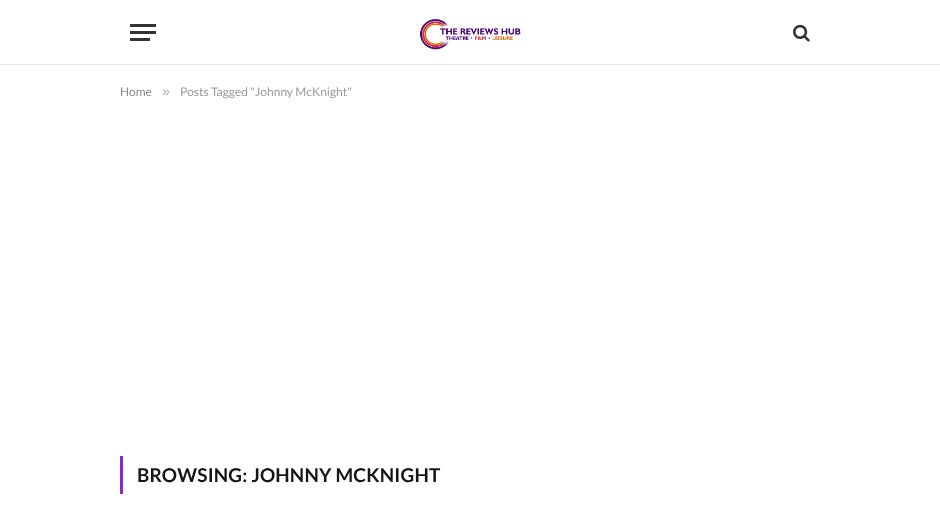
<svg xmlns="http://www.w3.org/2000/svg" width="940" height="528" viewBox="0 0 940 528">
  <rect width="100%" height="100%" fill="#fff"/>
  <path d="M0 64h940v1H0z" fill="#e8e8e8"/>
  <path d="M130 38h20v3H130z" fill="#333"/>
  <path d="M130 24h26v3H130z" fill="#333"/>
  <path d="M130 31h26v3H130z" fill="#333"/>
  <image x="419" y="19" width="102" height="31" href="img/1.png"/>
  <image x="793" y="24" width="17" height="18" href="img/2.png"/>
  <path d="M120 456h3v38H120z" fill="#8827ce"/>
  <text x="120" y="96" font-family="Lato" font-size="12" fill="#8a8a8a">Home</text>
  <text x="162" y="96" font-family="Liberation Sans" font-size="14" fill="#adadad">»</text>
  <text x="180" y="96" font-family="Lato" font-size="12" fill="#999">Posts Tagged "Johnny McKnight"</text>
  <text x="137" y="482" font-family="Lato" font-size="19" font-weight="bold" letter-spacing="0.2" fill="#161616">BROWSING: JOHNNY MCKNIGHT</text>
</svg>
